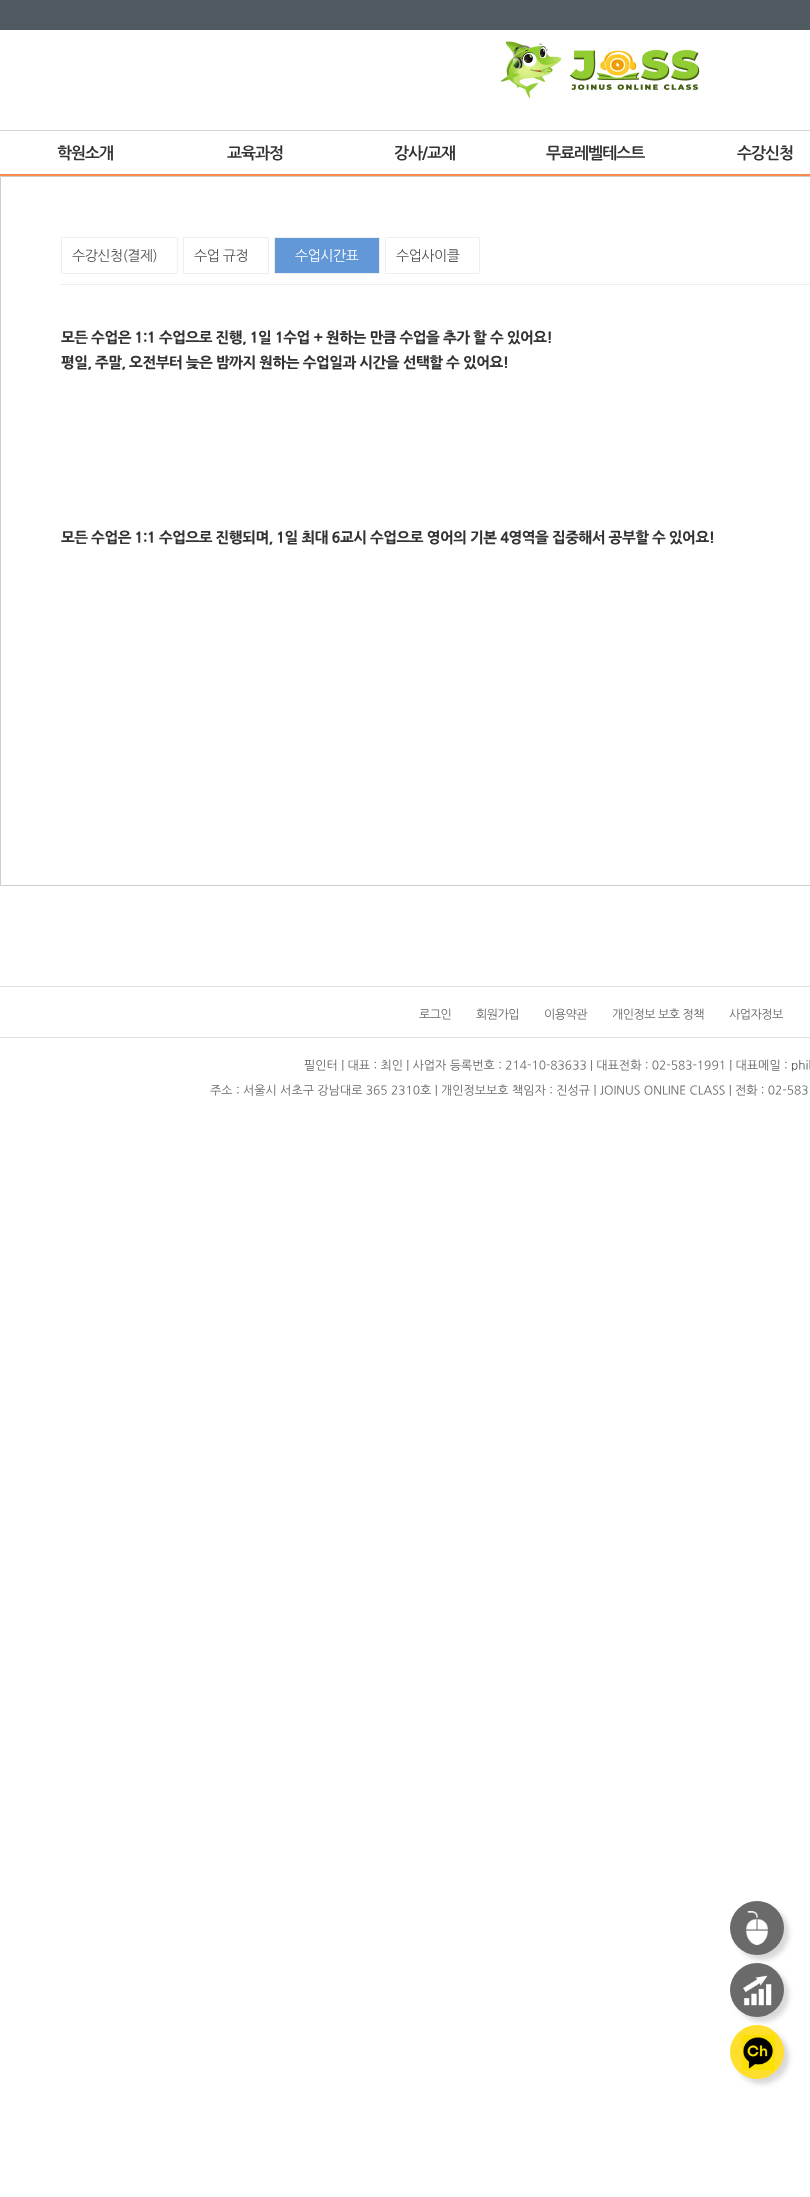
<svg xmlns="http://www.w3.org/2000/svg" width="810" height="2197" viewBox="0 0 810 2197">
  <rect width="100%" height="100%" fill="#fff"/>
  <path d="M0 0h810v30H0z" fill="#505b61"/>
  <image x="500" y="40" width="200" height="59" href="img/1.png"/>
  <path d="M0 130h810v1H0z" fill="#d5d5d5"/>
  <path d="M0 174h810v2H0z" fill="#ff8c4c"/>
  <path d="M0.5 176.5h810v709H0.5z" fill="none" stroke="#cdcdcd"/>
  <path d="M61 284h749v1H61z" fill="#eee"/>
  <path d="M61.5 237.5h116v36H61.5z" fill="none" stroke="#eee"/>
  <path d="M183.5 237.5h85v36H183.5z" fill="none" stroke="#eee"/>
  <path d="M274.5 237.5h105v36H274.5z" fill="#6297d8" stroke="#eee"/>
  <path d="M385.5 237.5h94v36H385.5z" fill="none" stroke="#eee"/>
  <path d="M0 986h810v1H0z" fill="#e1e1e1"/>
  <path d="M0 1037h810v1H0z" fill="#e1e1e1"/>
  <rect x="735" y="1906" width="54" height="54" rx="27" fill="#3b3b3b33" filter="blur(2.5px)"/>
  <circle cx="757" cy="1928" r="27" fill="#6a6a6a"/>
  <image x="746" y="1911" width="23" height="34" href="img/2.png"/>
  <rect x="735" y="1968" width="54" height="54" rx="27" fill="#3b3b3b33" filter="blur(2.5px)"/>
  <circle cx="757" cy="1990" r="27" fill="#6a6a6a"/>
  <image x="743" y="1975" width="29" height="31" href="img/3.png"/>
  <rect x="735" y="2030" width="54" height="54" rx="27" fill="#3b3b3b33" filter="blur(2.5px)"/>
  <circle cx="757" cy="2052" r="27" fill="#ffdf2c"/>
  <image x="742" y="2035" width="33" height="35" href="img/4.png"/>
  <g font-family="NanumGothic" font-size="16" font-weight="bold" letter-spacing="-1" fill="#333">
    <text x="57" y="158">학원소개</text>
    <text x="227" y="158">교육과정</text>
    <text x="394" y="158">강사/교재</text>
    <text x="546" y="158">무료레벨테스트</text>
    <text x="737" y="158">수강신청</text>
  </g>
  <g font-family="NanumGothic" font-size="14" letter-spacing="-0.5" fill="#525252">
    <text x="72" y="260">수강신청(결제)</text>
    <text x="194" y="260">수업 규정</text>
  </g>
  <text x="295" y="260" font-family="NanumGothic" font-size="14" letter-spacing="-0.5" fill="#fff">수업시간표</text>
  <text x="396" y="260" font-family="NanumGothic" font-size="14" letter-spacing="-0.5" fill="#525252">수업사이클</text>
  <g font-family="NanumGothic" font-size="14.65" font-weight="800" letter-spacing="-0.5" fill="#333">
    <text x="61" y="342">모든 수업은 1:1 수업으로 진행, 1일 1수업 + 원하는 만큼 수업을 추가 할 수 있어요!</text>
    <text x="61" y="367">평일, 주말, 오전부터 늦은 밤까지 원하는 수업일과 시간을 선택할 수 있어요!</text>
    <text x="61" y="542">모든 수업은 1:1 수업으로 진행되며, 1일 최대 6교시 수업으로 영어의 기본 4영역을 집중해서 공부할 수 있어요!</text>
  </g>
  <g font-family="NanumGothic" font-size="12" letter-spacing="-0.5" fill="#666">
    <text x="419" y="1018">로그인</text>
    <text x="476" y="1018">회원가입</text>
    <text x="544" y="1018">이용약관</text>
    <text x="612" y="1018">개인정보 보호 정책</text>
    <text x="729" y="1018">사업자정보</text>
  </g>
  <text x="304" y="1069" font-family="NanumGothic" font-size="12" fill="#666">필인터 | 대표 : 최인 | 사업자 등록번호 : 214-10-83633 | 대표전화 : 02-583-1991 | 대표메일 :</text>
  <text x="791" y="1069" font-family="NanumGothic" font-size="12" fill="#525252">phil</text>
  <text x="210" y="1094" font-family="NanumGothic" font-size="12" fill="#666">주소 : 서울시 서초구 강남대로 365 2310호 | 개인정보보호 책임자 : 진성규 | JOINUS ONLINE CLASS | 전화 : 02-583</text>
</svg>
